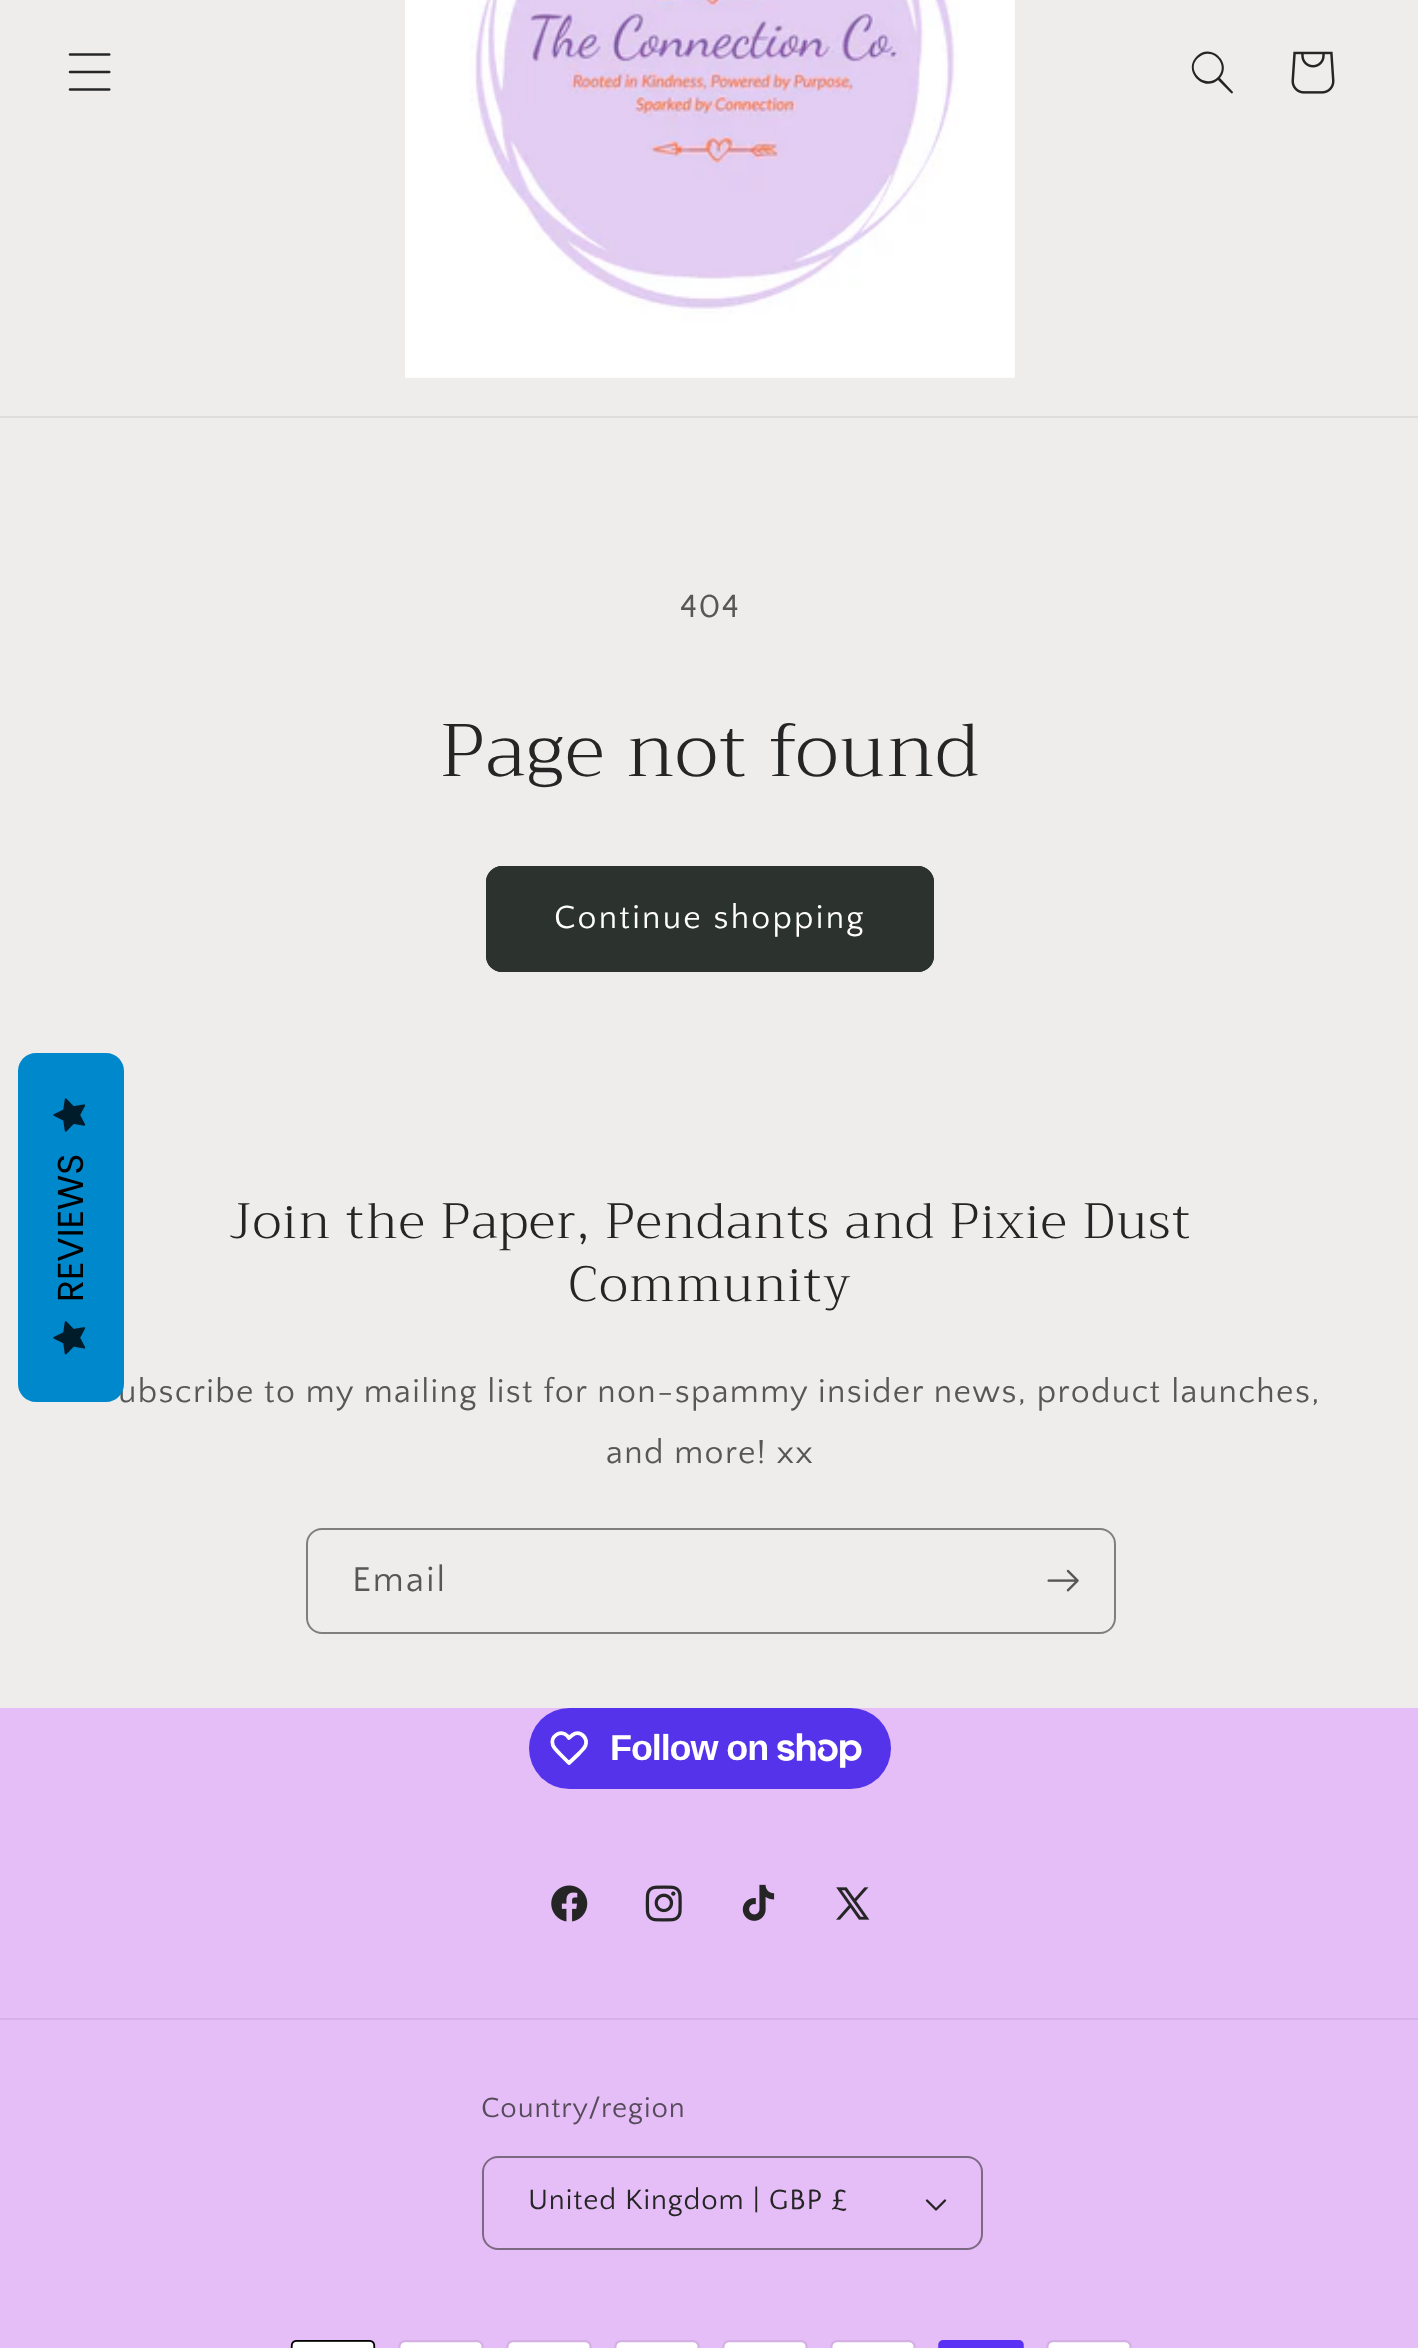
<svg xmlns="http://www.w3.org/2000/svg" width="1418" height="2348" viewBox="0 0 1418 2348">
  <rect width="100%" height="100%" fill="#efecec"/>
  <path d="M0 416h1418v2H0z" fill="#dfdcdc"/>
  <image x="68" y="53" width="43" height="38" href="img/1.png"/>
  <image x="405" y="0" width="610" height="378" href="img/2.png"/>
  <path d="M1218 77C1205 90 1185 70 1198 58C1211 45 1230 64 1218 77M1218 80C1203 93 1182 70 1197 56C1211 42 1233 63 1220 78L1233 92C1233 93 1232 94 1231 93Z" fill="#252525" fill-rule="evenodd"/>
  <image x="1291" y="51" width="44" height="43" href="img/3.png"/>
  <rect x="486" y="866" width="448" height="106" rx="16" fill="#2c332f"/>
  <rect x="487" y="867" width="446" height="104" rx="15" fill="none" stroke="#2c332f" stroke-width="2"/>
  <rect x="307" y="1529" width="808" height="104" rx="15" fill="none" stroke="#807f7f" stroke-width="2"/>
  <image x="1047" y="1569" width="32" height="23" href="img/6.png"/>
  <path d="M0 1708h1418v640H0z" fill="#e6bef7"/>
  <rect x="529" y="1708" width="362" height="81" rx="40.5" fill="#5433eb"/>
  <path d="M567.5 1736L569 1738C571 1736 572.5 1734.5 575 1733.5C581.5 1731.5 588 1738.5 585.5 1745.5C584.5 1748.5 581 1751 579 1753.5L569 1763L559.5 1753.5C557.5 1751 554.5 1749 553 1745.5C549.5 1736.5 560.5 1729 567.5 1736Z" fill="none" stroke="#fff" stroke-width="3.8" stroke-linejoin="round"/>
  <image x="777" y="1733" width="85" height="35" href="img/7.png"/>
  <image x="551" y="1885" width="37" height="37" href="img/8.png"/>
  <image x="645" y="1885" width="37" height="37" href="img/9.png"/>
  <image x="742" y="1884" width="33" height="37" href="img/10.png"/>
  <image x="836" y="1887" width="34" height="33" href="img/11.png"/>
  <path d="M0 2018h1418v2H0z" fill="#d7b2e6"/>
  <image x="925" y="2199" width="22" height="12" href="img/12.png"/>
  <rect x="483" y="2157" width="499" height="92" rx="15" fill="none" stroke="#7c6a84" stroke-width="2"/>
  <image x="290" y="2340" width="86" height="8" href="img/13.png"/>
  <image x="398" y="2340" width="86" height="8" href="img/14.png"/>
  <image x="506" y="2340" width="86" height="8" href="img/14.png"/>
  <image x="614" y="2340" width="86" height="8" href="img/14.png"/>
  <image x="722" y="2340" width="86" height="8" href="img/14.png"/>
  <image x="830" y="2340" width="86" height="8" href="img/14.png"/>
  <image x="938" y="2340" width="86" height="8" href="img/15.png"/>
  <image x="1046" y="2340" width="86" height="8" href="img/14.png"/>
  <text x="680" y="617" font-family="Quattrocento Sans" font-size="33.75" letter-spacing="1.35" fill="#585757">404</text>
  <text x="440" y="776" font-family="Trirong" font-size="74.25" font-weight="300" letter-spacing="1.5" fill="#252525">Page not found</text>
  <text x="554" y="928" font-family="Quattrocento Sans" font-size="33.75" letter-spacing="2.25" fill="#fff">Continue shopping</text>
  <g font-family="Trirong" font-size="49.5" font-weight="300" letter-spacing="1.5" fill="#252525">
    <text x="229" y="1238">Join the Paper, Pendants and Pixie Dust</text>
    <text x="568" y="1301">Community</text>
  </g>
  <text x="118" y="1402" font-family="Quattrocento Sans" font-size="33.75" letter-spacing="1.35" fill="#585757">ubscribe to my mailing list for non-spammy insider news, product launches,</text>
  <path d="M18 1384V1071C18 1061 26 1053 36 1053H106C116 1053 124 1061 124 1071V1384C124 1394 116 1402 106 1402H36C26 1402 18 1394 18 1384Z" fill="#08c"/>
  <image x="53" y="1098" width="33" height="34" href="img/4.png"/>
  <image x="53" y="1321" width="33" height="34" href="img/5.png"/>
  <text x="83" y="1302" transform="rotate(-90 83 1302)" font-family="Poppins" font-size="36" fill="#000">REVIEWS</text>
  <text x="606" y="1463" font-family="Quattrocento Sans" font-size="33.75" letter-spacing="1.35" fill="#585757">and more! xx</text>
  <text x="352" y="1591" font-family="Quattrocento Sans" font-size="36" letter-spacing="2.25" fill="#585757">Email</text>
  <text x="610" y="1760" font-family="Liberation Sans" font-size="36" font-weight="bold" letter-spacing="-1.1" fill="#fff">Follow on</text>
  <text x="481" y="2117" font-family="Quattrocento Sans" font-size="29.25" letter-spacing="0.9" fill="#554b5a">Country/region</text>
  <text x="528" y="2209" font-family="Quattrocento Sans" font-size="29.25" letter-spacing="0.9" fill="#252525">United Kingdom | GBP £</text>
</svg>
